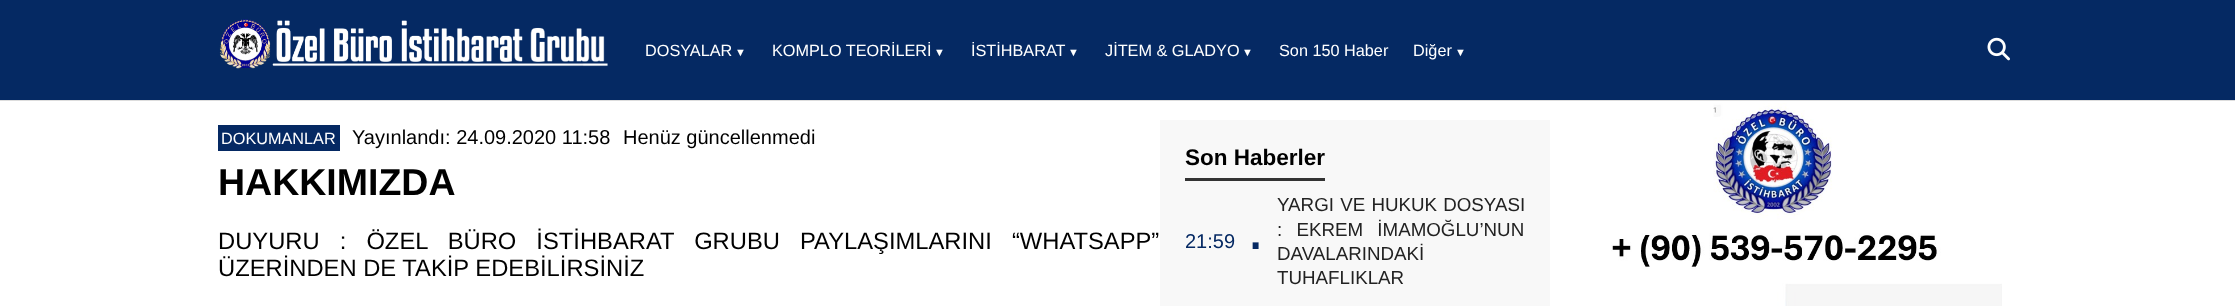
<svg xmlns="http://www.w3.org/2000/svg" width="2235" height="306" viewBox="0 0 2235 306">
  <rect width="100%" height="100%" fill="#fff"/>
  <path d="M0 0h2235v100H0z" fill="#052963"/>
  <path d="M0 100h2235v1H0z" fill="#ddd"/>
  <image x="219" y="19" width="389" height="50" href="img/1.png"/>
  <image x="1987" y="37" width="23" height="24" href="img/2.png"/>
  <path d="M218 125h122v26H218z" fill="#052963"/>
  <path d="M1160 120h390v186H1160z" fill="#f8f8f8"/>
  <path d="M1185 178h140v3H1185z" fill="#333"/>
  <image x="1611" y="103" width="391" height="203" href="img/3.png"/>
  <text x="645" y="56" font-family="Liberation Sans" font-size="16.25" fill="#fff">DOSYALAR</text>
  <text x="735" y="56" font-family="Liberation Sans" font-size="11" fill="#fff">▼</text>
  <text x="772" y="56" font-family="Liberation Sans" font-size="16.25" fill="#fff">KOMPLO TEORİLERİ</text>
  <text x="934" y="56" font-family="Liberation Sans" font-size="11" fill="#fff">▼</text>
  <text x="971" y="56" font-family="Liberation Sans" font-size="16.25" fill="#fff">İSTİHBARAT</text>
  <text x="1068" y="56" font-family="Liberation Sans" font-size="11" fill="#fff">▼</text>
  <text x="1105" y="56" font-family="Liberation Sans" font-size="16.25" fill="#fff">JİTEM &amp; GLADYO</text>
  <text x="1242" y="56" font-family="Liberation Sans" font-size="11" fill="#fff">▼</text>
  <g font-family="Liberation Sans" font-size="16.25" fill="#fff">
    <text x="1279" y="56">Son 150 Haber</text>
    <text x="1413" y="56">Diğer</text>
  </g>
  <text x="1455" y="56" font-family="Liberation Sans" font-size="11" fill="#fff">▼</text>
  <text x="221" y="144" font-family="Liberation Sans" font-size="16.25" fill="#fff">DOKUMANLAR</text>
  <g font-family="Liberation Sans" font-size="20" fill="#000">
    <text x="352" y="144">Yayınlandı: 24.09.2020 11:58</text>
    <text x="623" y="144">Henüz güncellenmedi</text>
  </g>
  <text x="218" y="195" font-family="Liberation Sans" font-size="37.5" font-weight="bold" fill="#000">HAKKIMIZDA</text>
  <g font-family="Liberation Sans" font-size="23.75" fill="#000">
    <text x="218" y="249" word-spacing="13.5">DUYURU : ÖZEL BÜRO İSTİHBARAT GRUBU PAYLAŞIMLARINI “WHATSAPP”</text>
    <text x="218" y="276">ÜZERİNDEN DE TAKİP EDEBİLİRSİNİZ</text>
  </g>
  <text x="1185" y="165" font-family="Liberation Sans" font-size="22.5" font-weight="bold" fill="#000">Son Haberler</text>
  <text x="1185" y="248" font-family="Liberation Sans" font-size="20" fill="#052963">21:59</text>
  <text x="1247" y="249" font-family="Liberation Sans" font-size="62" fill="#052963">.</text>
  <g font-family="Liberation Sans" font-size="18.75" fill="#222">
    <text x="1277" y="211" word-spacing="1">YARGI VE HUKUK DOSYASI</text>
    <text x="1277" y="236" word-spacing="9">: EKREM İMAMOĞLU’NUN</text>
    <text x="1277" y="260">DAVALARINDAKİ</text>
    <text x="1277" y="284">TUHAFLIKLAR</text>
  </g>
</svg>
